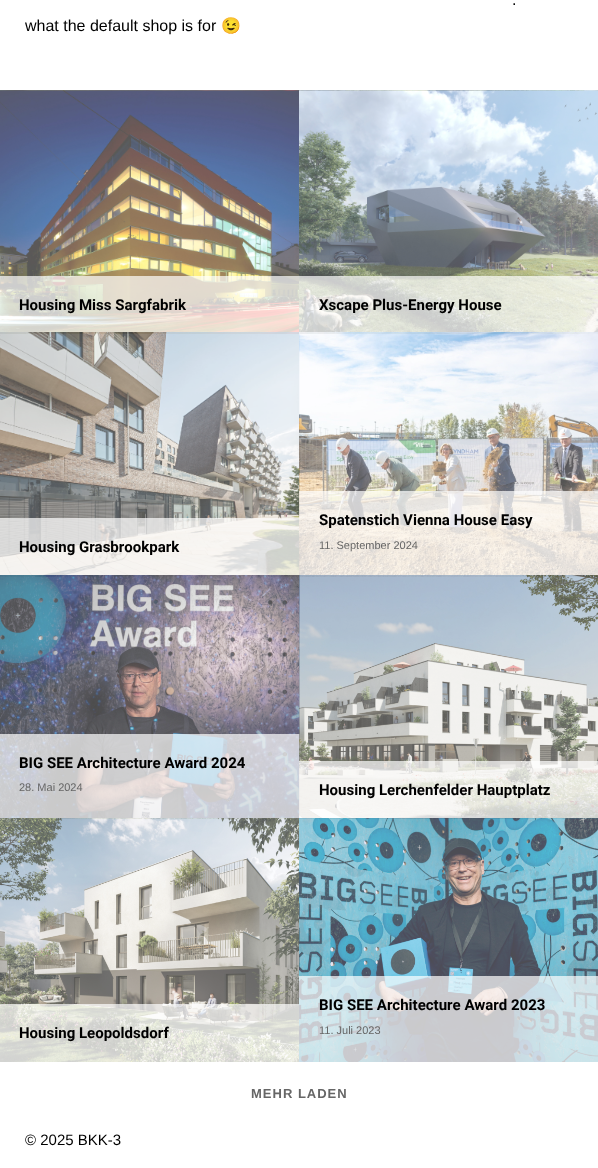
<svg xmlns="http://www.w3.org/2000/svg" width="598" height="1168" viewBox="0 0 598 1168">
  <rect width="100%" height="100%" fill="#fff"/>
  <image x="0" y="90" width="299" height="244" href="img/1.png"/>
  <path d="M0 276h299v58H0z" fill="#ffffffb3"/>
  <image x="299" y="90" width="299" height="244" href="img/2.png"/>
  <path d="M299 276h299v58H299z" fill="#ffffffb3"/>
  <image x="0" y="332" width="300" height="245" href="img/3.png"/>
  <path d="M0 518h300v59H0z" fill="#ffffffb3"/>
  <image x="299" y="332" width="299" height="245" href="img/4.png"/>
  <path d="M299 491h299v86H299z" fill="#ffffffb3"/>
  <image x="0" y="575" width="300" height="243" href="img/5.png"/>
  <path d="M0 734h300v84H0z" fill="#ffffffb3"/>
  <image x="299" y="575" width="299" height="243" href="img/6.png"/>
  <path d="M299 761h299v57H299z" fill="#ffffffb3"/>
  <image x="0" y="818" width="299" height="244" href="img/7.png"/>
  <path d="M0 1004h299v58H0z" fill="#ffffffb3"/>
  <image x="299" y="818" width="299" height="244" href="img/8.png"/>
  <path d="M299 976h299v86H299z" fill="#ffffffb3"/>
  <g font-family="Liberation Sans" font-size="16" fill="#000">
    <text x="512" y="5">.</text>
    <text x="25" y="31">what the default shop is for</text>
  </g>
  <text x="221" y="31" font-family="Noto Color Emoji" font-size="16" fill="#000">😉</text>
  <g font-family="Heebo" font-size="15" font-weight="bold" fill="#000">
    <text x="19" y="310">Housing Miss Sargfabrik</text>
    <text x="319" y="310">Xscape Plus-Energy House</text>
    <text x="19" y="552">Housing Grasbrookpark</text>
    <text x="319" y="525">Spatenstich Vienna House Easy</text>
  </g>
  <text x="319" y="549" font-family="Liberation Sans" font-size="11" fill="#666">11. September 2024</text>
  <text x="19" y="768" font-family="Heebo" font-size="15" font-weight="bold" fill="#000">BIG SEE Architecture Award 2024</text>
  <text x="19" y="791" font-family="Liberation Sans" font-size="11" fill="#666">28. Mai 2024</text>
  <g font-family="Heebo" font-size="15" font-weight="bold" fill="#000">
    <text x="319" y="795">Housing Lerchenfelder Hauptplatz</text>
    <text x="19" y="1038">Housing Leopoldsdorf</text>
    <text x="319" y="1010">BIG SEE Architecture Award 2023</text>
  </g>
  <text x="319" y="1034" font-family="Liberation Sans" font-size="11" fill="#666">11. Juli 2023</text>
  <text x="251" y="1098" font-family="Liberation Sans" font-size="13" font-weight="bold" letter-spacing="1" fill="#666">MEHR LADEN</text>
  <text x="25" y="1145" font-family="Liberation Sans" font-size="15" fill="#000">© 2025 BKK-3</text>
</svg>
